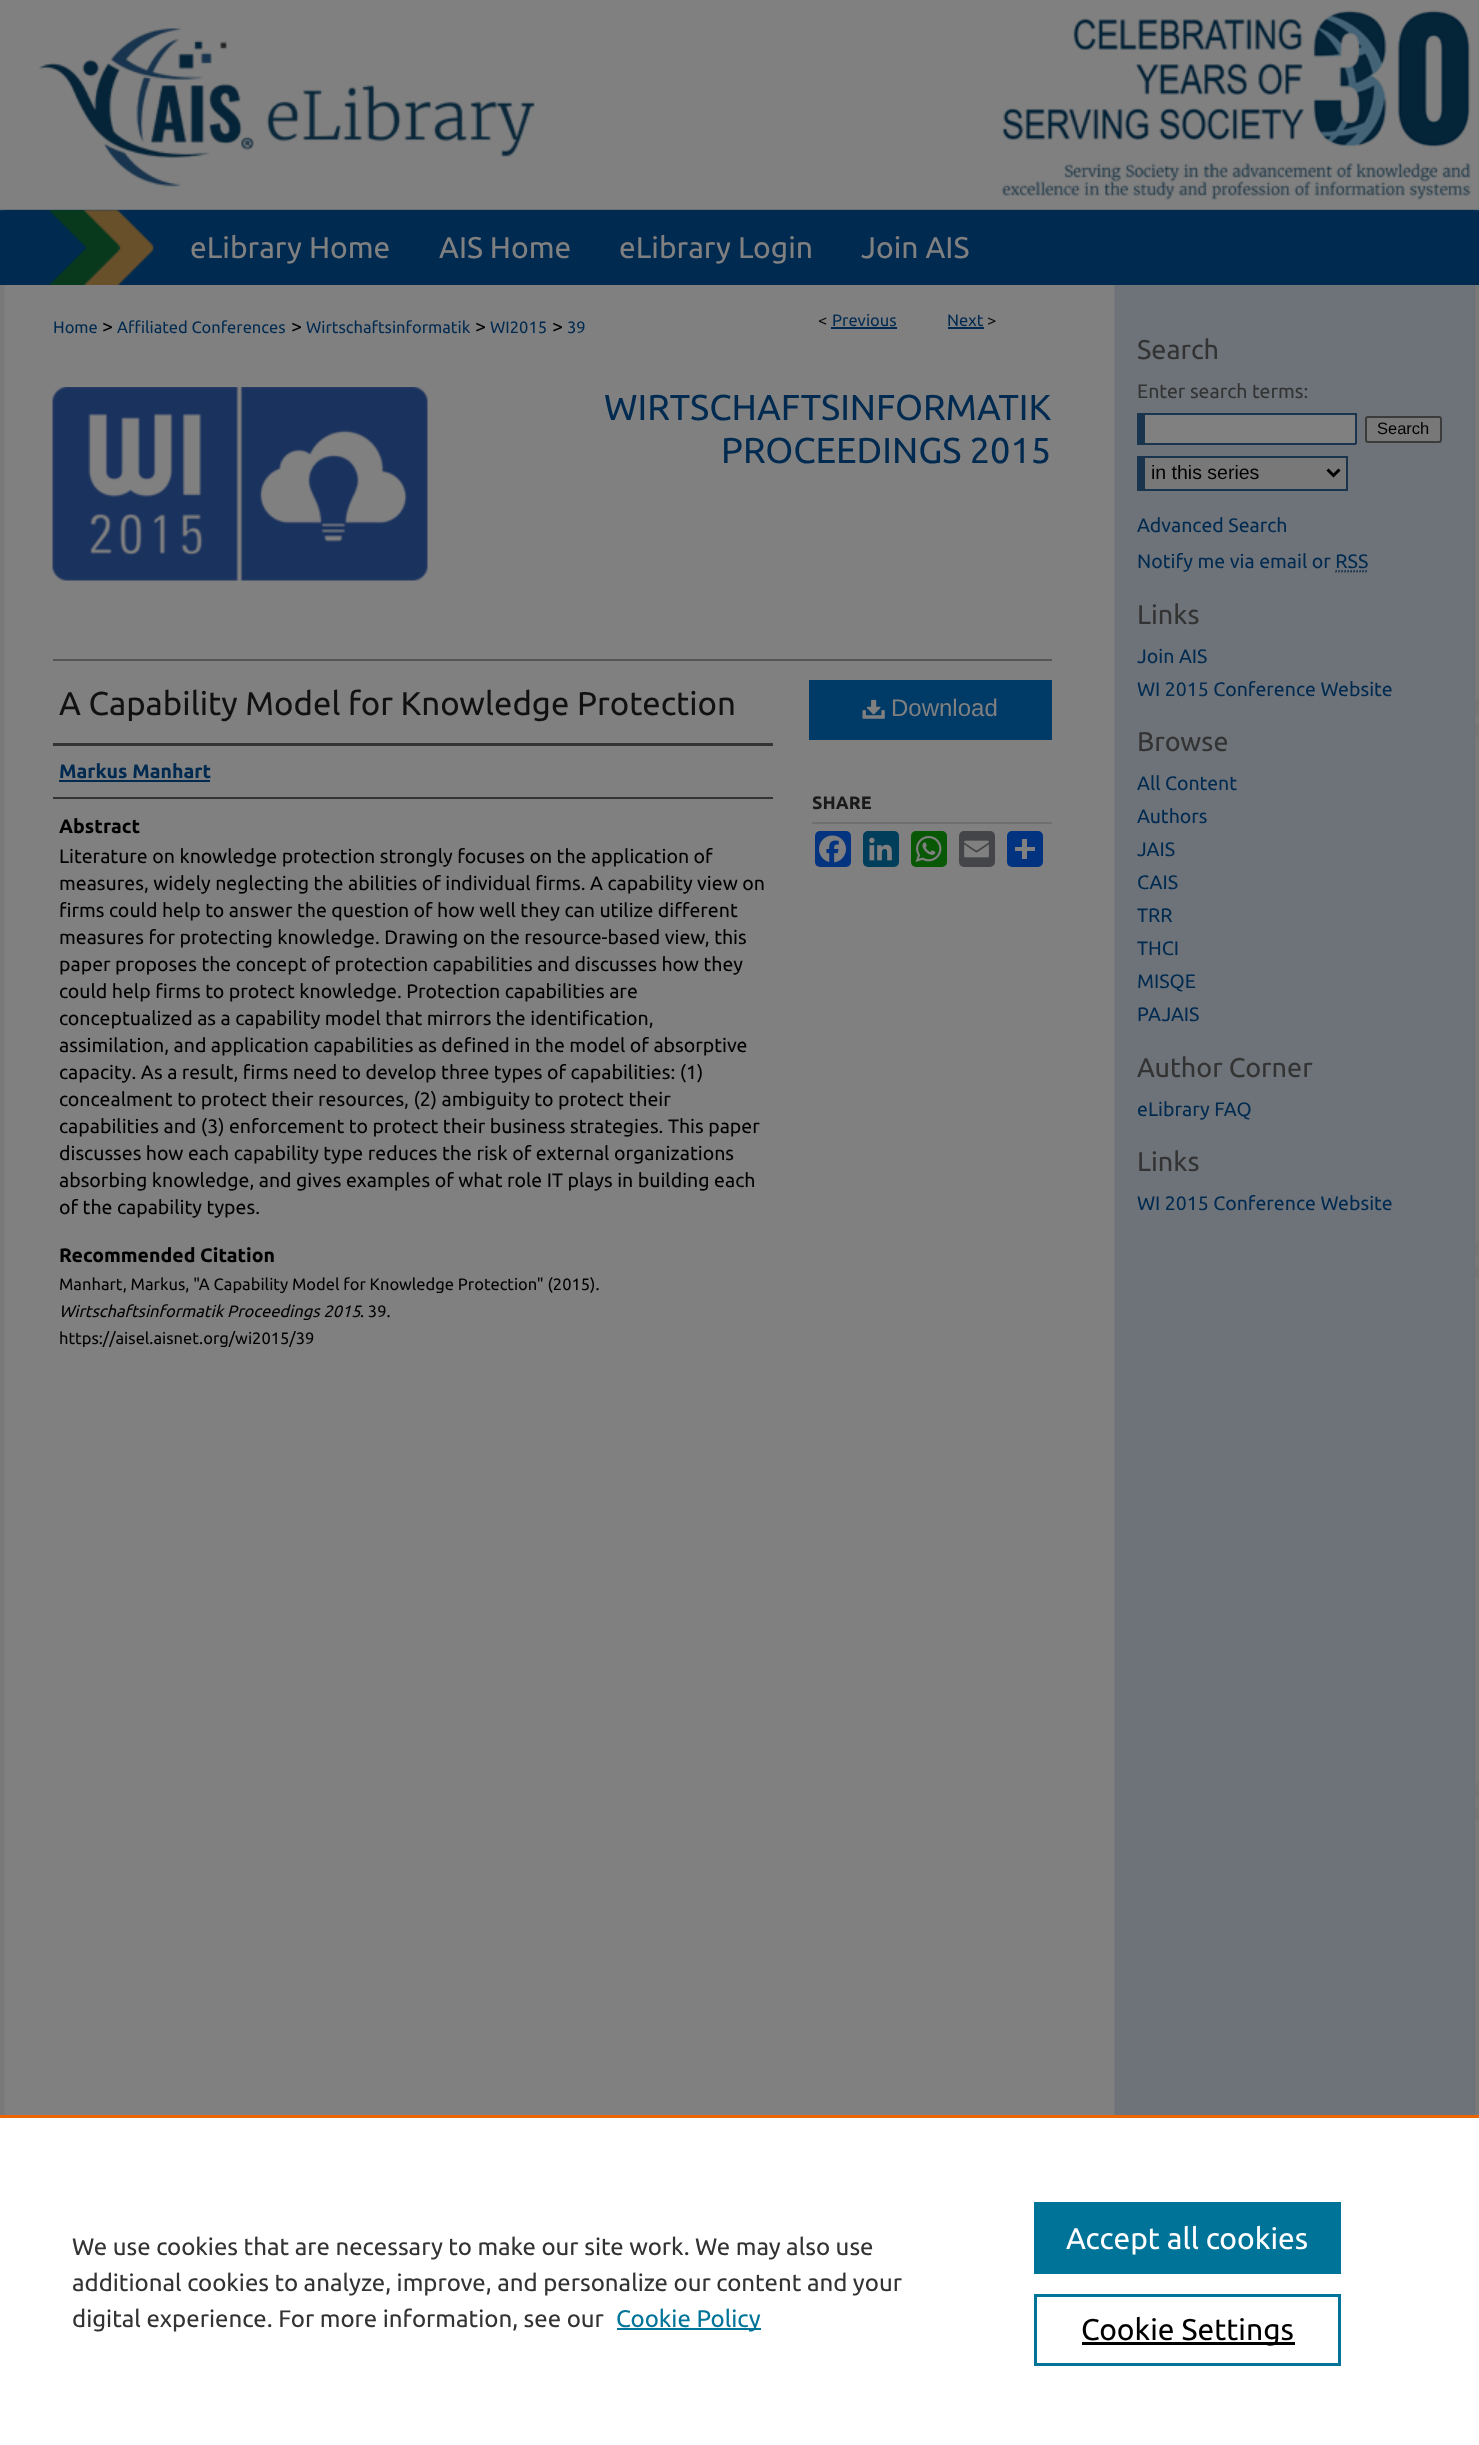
<svg xmlns="http://www.w3.org/2000/svg" width="1479" height="2445" viewBox="0 0 1479 2445">
  <rect width="100%" height="100%" fill="#fff"/>
  <image x="0" y="0" width="1479" height="2115" href="img/1.png"/>
  <image x="39" y="10" width="1432" height="190" href="img/2.png"/>
  <image x="4" y="210" width="1471" height="75" href="img/3.png"/>
  <path d="M1474 285h1v1830H1474z" fill="#646d78"/>
  <image x="4" y="285" width="1471" height="1830" href="img/4.png"/>
  <path d="M831 327h66v2H831z" fill="#002a50"/>
  <path d="M948 327h36v2H948z" fill="#002a50"/>
  <image x="52" y="387" width="376" height="194" href="img/5.png"/>
  <path d="M53 659h999v2H53z" fill="#555"/>
  <path d="M53 743h720v3H53z" fill="#333"/>
  <path d="M53 797h720v2H53z" fill="#333"/>
  <path d="M59 780h151v2H59z" fill="#002a50"/>
  <path d="M809 680h243v60H809z" fill="#003a66"/>
  <image x="862" y="699" width="23" height="20" href="img/6.png"/>
  <path d="M812 822h240v2H812z" fill="#6f6f6f"/>
  <rect x="815" y="831" width="36" height="36" rx="5" fill="#043380"/>
  <image x="819" y="835" width="27" height="28" href="img/7.png"/>
  <rect x="863" y="831" width="36" height="36" rx="5" fill="#003e5b"/>
  <image x="869" y="837" width="23" height="24" href="img/8.png"/>
  <rect x="911" y="831" width="36" height="36" rx="5" fill="#095805"/>
  <image x="915" y="836" width="27" height="26" href="img/9.png"/>
  <rect x="959" y="831" width="36" height="36" rx="5" fill="#444548"/>
  <image x="964" y="840" width="25" height="18" href="img/10.png"/>
  <rect x="1007" y="831" width="36" height="36" rx="5" fill="#013380"/>
  <path d="M1022 839h5v20H1022z" fill="#808080"/>
  <path d="M1015 847h20v4H1015z" fill="#808080"/>
  <path d="M1145 415h210v28H1145z" fill="#808080"/>
  <path d="M1137 413h219v2H1137z" fill="#19344d"/>
  <path d="M1355 413h2v31H1355z" fill="#19344d"/>
  <path d="M1137 443h219v2H1137z" fill="#19344d"/>
  <path d="M1137 413h8v31H1137z" fill="#19344d"/>
  <rect x="1366" y="417" width="75" height="25" rx="2" fill="#787878" stroke="#3b3b3b" stroke-width="2"/>
  <path d="M1145 458h201v31H1145z" fill="#787878"/>
  <path d="M1137 456h210v2H1137z" fill="#19344d"/>
  <path d="M1346 456h2v35H1346z" fill="#19344d"/>
  <path d="M1137 489h210v2H1137z" fill="#19344d"/>
  <path d="M1137 456h8v35H1137z" fill="#19344d"/>
  <path d="M1327.5 469.5L1333.5 475.5L1339.5 469.5" fill="none" stroke="#000" stroke-width="3"/>
  <path d="M0 2115h1479v3H0z" fill="#eb6500"/>
  <path d="M617 2328h144v2H617z" fill="#007398"/>
  <path d="M1034 2202h307v72H1034z" fill="#007398"/>
  <path d="M1035.5 2295.5h304v69H1035.5z" fill="none" stroke="#007398" stroke-width="3"/>
  <path d="M1082 2342h213v3H1082z" fill="#000"/>
  <g font-family="Ubuntu" font-size="30" fill="#808080">
    <text x="190" y="258">eLibrary Home</text>
    <text x="439" y="258">AIS Home</text>
    <text x="619" y="258">eLibrary Login</text>
    <text x="861" y="258">Join AIS</text>
  </g>
  <text x="53" y="333" font-family="Ubuntu" font-size="16.5" fill="#002a50">Home</text>
  <text x="102" y="333" font-family="Ubuntu" font-size="19.5" fill="#000">&gt;</text>
  <text x="117" y="333" font-family="Ubuntu" font-size="16.5" fill="#002a50">Affiliated Conferences</text>
  <text x="291" y="333" font-family="Ubuntu" font-size="19.5" fill="#000">&gt;</text>
  <text x="306" y="333" font-family="Ubuntu" font-size="16.5" fill="#002a50">Wirtschaftsinformatik</text>
  <text x="475" y="333" font-family="Ubuntu" font-size="19.5" fill="#000">&gt;</text>
  <text x="490" y="333" font-family="Ubuntu" font-size="16.5" fill="#002a50">WI2015</text>
  <text x="552" y="333" font-family="Ubuntu" font-size="19.5" fill="#000">&gt;</text>
  <text x="567" y="333" font-family="Ubuntu" font-size="16.5" fill="#002a50">39</text>
  <text x="818" y="326" font-family="Ubuntu" font-size="16.5" fill="#111">&lt;</text>
  <g font-family="Ubuntu" font-size="16.5" fill="#002a50">
    <text x="832" y="326">Previous</text>
    <text x="947" y="326">Next</text>
  </g>
  <text x="987" y="326" font-family="Ubuntu" font-size="16.5" fill="#111">&gt;</text>
  <g font-family="Ubuntu" font-size="36" fill="#002a50">
    <text x="604" y="420">WIRTSCHAFTSINFORMATIK</text>
    <text x="721" y="463">PROCEEDINGS 2015</text>
  </g>
  <text x="59" y="715" font-family="Ubuntu" font-size="33" fill="#111">A Capability Model for Knowledge Protection</text>
  <text x="59" y="778" font-family="Ubuntu" font-size="19.5" font-weight="bold" fill="#002a50">Markus Manhart</text>
  <text x="59" y="833" font-family="Ubuntu" font-size="19.5" font-weight="bold" fill="#000">Abstract</text>
  <g font-family="Ubuntu" font-size="19.5" fill="#000">
    <text x="59" y="863">Literature on knowledge protection strongly focuses on the application of</text>
    <text x="59" y="890">measures, widely neglecting the abilities of individual firms. A capability view on</text>
    <text x="59" y="917">firms could help to answer the question of how well they can utilize different</text>
    <text x="59" y="944">measures for protecting knowledge. Drawing on the resource-based view, this</text>
    <text x="59" y="971">paper proposes the concept of protection capabilities and discusses how they</text>
    <text x="59" y="998">could help firms to protect knowledge. Protection capabilities are</text>
    <text x="59" y="1025">conceptualized as a capability model that mirrors the identification,</text>
    <text x="59" y="1052">assimilation, and application capabilities as defined in the model of absorptive</text>
    <text x="59" y="1079">capacity. As a result, firms need to develop three types of capabilities: (1)</text>
    <text x="59" y="1106">concealment to protect their resources, (2) ambiguity to protect their</text>
    <text x="59" y="1133">capabilities and (3) enforcement to protect their business strategies. This paper</text>
    <text x="59" y="1160">discusses how each capability type reduces the risk of external organizations</text>
    <text x="59" y="1187">absorbing knowledge, and gives examples of what role IT plays in building each</text>
    <text x="59" y="1214">of the capability types.</text>
  </g>
  <text x="59" y="1262" font-family="Ubuntu" font-size="19.5" font-weight="bold" fill="#000">Recommended Citation</text>
  <text x="59" y="1290" font-family="Ubuntu" font-size="16.5" fill="#000">Manhart, Markus, "A Capability Model for Knowledge Protection" (2015).</text>
  <text x="59" y="1317" font-family="Ubuntu" font-size="16.5" font-style="italic" fill="#000">Wirtschaftsinformatik Proceedings 2015</text>
  <g font-family="Ubuntu" font-size="16.5" fill="#000">
    <text x="360" y="1317">. 39.</text>
    <text x="59" y="1344">https://aisel.aisnet.org/wi2015/39</text>
  </g>
  <text x="891" y="716" font-family="Liberation Sans" font-size="24" fill="#808080">Download</text>
  <text x="812" y="809" font-family="Ubuntu" font-size="18" font-weight="bold" fill="#1a1a1a">SHARE</text>
  <text x="1137" y="359" font-family="Ubuntu" font-size="27" fill="#333">Search</text>
  <text x="1137" y="398" font-family="Ubuntu" font-size="19.5" fill="#333">Enter search terms:</text>
  <text x="1377" y="434" font-family="Liberation Sans" font-size="16.5" fill="#000">Search</text>
  <text x="1151" y="479" font-family="Liberation Sans" font-size="19.5" fill="#000">in this series</text>
  <g font-family="Ubuntu" font-size="19.5" fill="#002a50">
    <text x="1137" y="532">Advanced Search</text>
    <text x="1137" y="568">Notify me via email or RSS</text>
  </g>
  <path d="M1335 572H1368" fill="none" stroke="#4d4d4d" stroke-width="1.5" stroke-dasharray="1.5 1.5"/>
  <path d="M1335.5 571H1368.5" fill="none" stroke="#002a50" stroke-width="1.5" stroke-dasharray="1.5 1.5"/>
  <text x="1137" y="624" font-family="Ubuntu" font-size="27" fill="#333">Links</text>
  <g font-family="Ubuntu" font-size="19.5" fill="#002a50">
    <text x="1137" y="663">Join AIS</text>
    <text x="1137" y="696">WI 2015 Conference Website</text>
  </g>
  <text x="1137" y="751" font-family="Ubuntu" font-size="27" fill="#333">Browse</text>
  <g font-family="Ubuntu" font-size="19.5" fill="#002a50">
    <text x="1137" y="790">All Content</text>
    <text x="1137" y="823">Authors</text>
    <text x="1137" y="856">JAIS</text>
    <text x="1137" y="889">CAIS</text>
    <text x="1137" y="922">TRR</text>
    <text x="1137" y="955">THCI</text>
    <text x="1137" y="988">MISQE</text>
    <text x="1137" y="1021">PAJAIS</text>
  </g>
  <text x="1137" y="1077" font-family="Ubuntu" font-size="27" fill="#333">Author Corner</text>
  <text x="1137" y="1116" font-family="Ubuntu" font-size="19.5" fill="#002a50">eLibrary FAQ</text>
  <text x="1137" y="1171" font-family="Ubuntu" font-size="27" fill="#333">Links</text>
  <text x="1137" y="1210" font-family="Ubuntu" font-size="19.5" fill="#002a50">WI 2015 Conference Website</text>
  <g font-family="Ubuntu" font-size="24" fill="#333">
    <text x="72" y="2255">We use cookies that are necessary to make our site work. We may also use</text>
    <text x="72" y="2291">additional cookies to analyze, improve, and personalize our content and your</text>
    <text x="72" y="2327">digital experience. For more information, see our</text>
  </g>
  <text x="616" y="2327" font-family="Ubuntu" font-size="24" fill="#007398">Cookie Policy</text>
  <text x="1066" y="2249" font-family="Ubuntu" font-size="30" fill="#fff">Accept all cookies</text>
  <text x="1081" y="2340" font-family="Ubuntu" font-size="30" fill="#000">Cookie Settings</text>
</svg>
